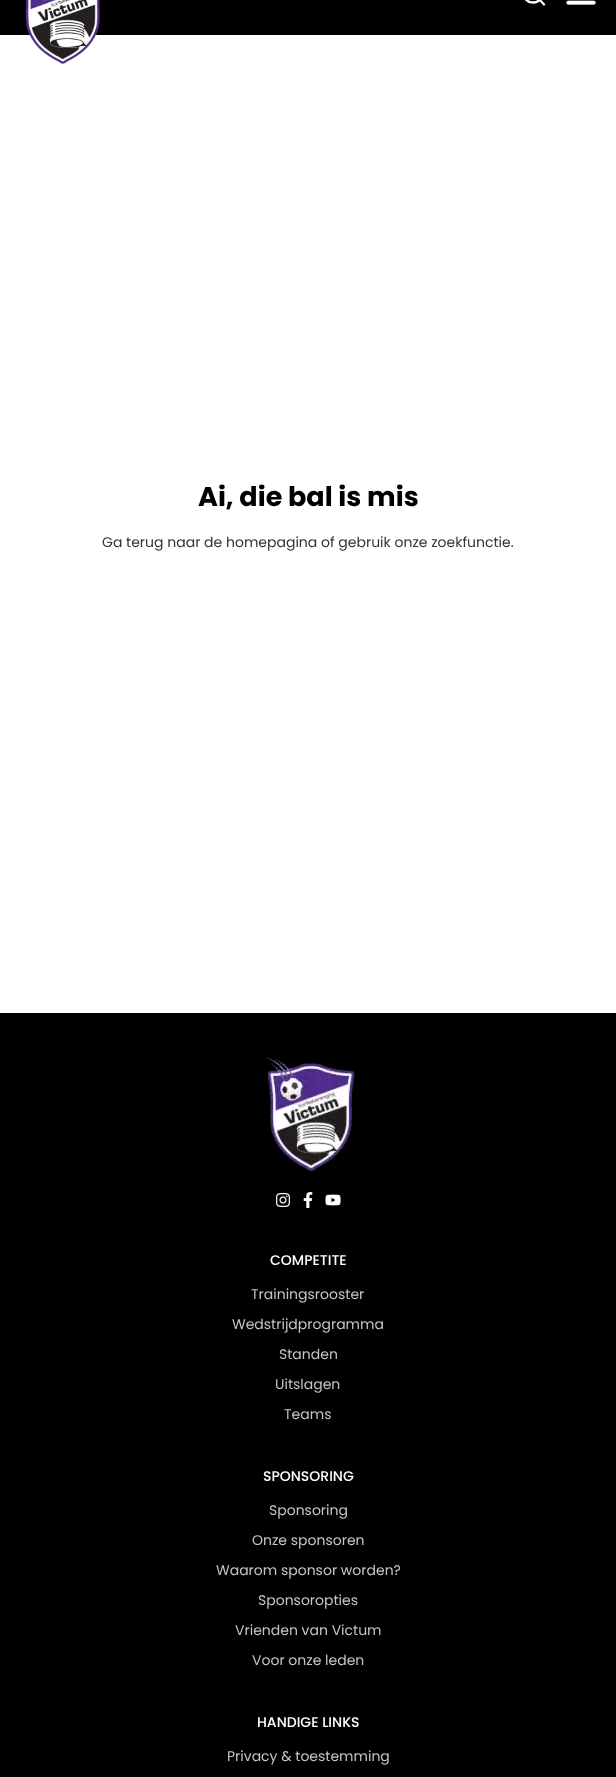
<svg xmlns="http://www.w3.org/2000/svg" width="616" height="1777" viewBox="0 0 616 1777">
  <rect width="100%" height="100%" fill="#fff"/>
  <path d="M0 0h616v35H0z" fill="#000"/>
  <image x="25" y="0" width="75" height="64" href="img/1.png"/>
  <path d="M533 2.5C545 2.5 545-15.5 533-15.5C521-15.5 521 2.5 533 2.5ZM544 4.5L539.5-.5" fill="none" stroke="#f6fff7" stroke-width="2.3" stroke-linecap="round" stroke-linejoin="round"/>
  <image x="566" y="0" width="30" height="5" href="img/2.png"/>
  <path d="M0 1013h616v764H0z" fill="#000"/>
  <image x="266" y="1056" width="89" height="116" href="img/3.png"/>
  <image x="276" y="1193" width="14" height="14" href="img/4.png"/>
  <image x="303" y="1192" width="10" height="16" href="img/5.png"/>
  <image x="325" y="1194" width="16" height="12" href="img/6.png"/>
  <text x="198" y="506" font-family="Poppins" font-size="27" font-weight="bold" fill="#000">Ai, die bal is mis</text>
  <text x="102" y="547" font-family="Poppins" font-size="14" fill="#333">Ga terug naar de homepagina of gebruik onze zoekfunctie.</text>
  <text x="270" y="1265" font-family="Poppins" font-size="14" font-weight="500" fill="#fff">COMPETITE</text>
  <g font-family="Poppins" font-size="14" fill="#c5c5c5">
    <text x="251" y="1299">Trainingsrooster</text>
    <text x="232" y="1329">Wedstrijdprogramma</text>
    <text x="279" y="1359">Standen</text>
    <text x="275" y="1389">Uitslagen</text>
    <text x="284" y="1419">Teams</text>
  </g>
  <text x="263" y="1481" font-family="Poppins" font-size="14" font-weight="500" fill="#fff">SPONSORING</text>
  <g font-family="Poppins" font-size="14" fill="#c5c5c5">
    <text x="269" y="1515">Sponsoring</text>
    <text x="252" y="1545">Onze sponsoren</text>
    <text x="216" y="1575">Waarom sponsor worden?</text>
    <text x="258" y="1605">Sponsoropties</text>
    <text x="235" y="1635">Vrienden van Victum</text>
    <text x="252" y="1665">Voor onze leden</text>
  </g>
  <text x="257" y="1727" font-family="Poppins" font-size="14" font-weight="500" fill="#fff">HANDIGE LINKS</text>
  <text x="227" y="1761" font-family="Poppins" font-size="14" fill="#c5c5c5">Privacy &amp; toestemming</text>
</svg>
